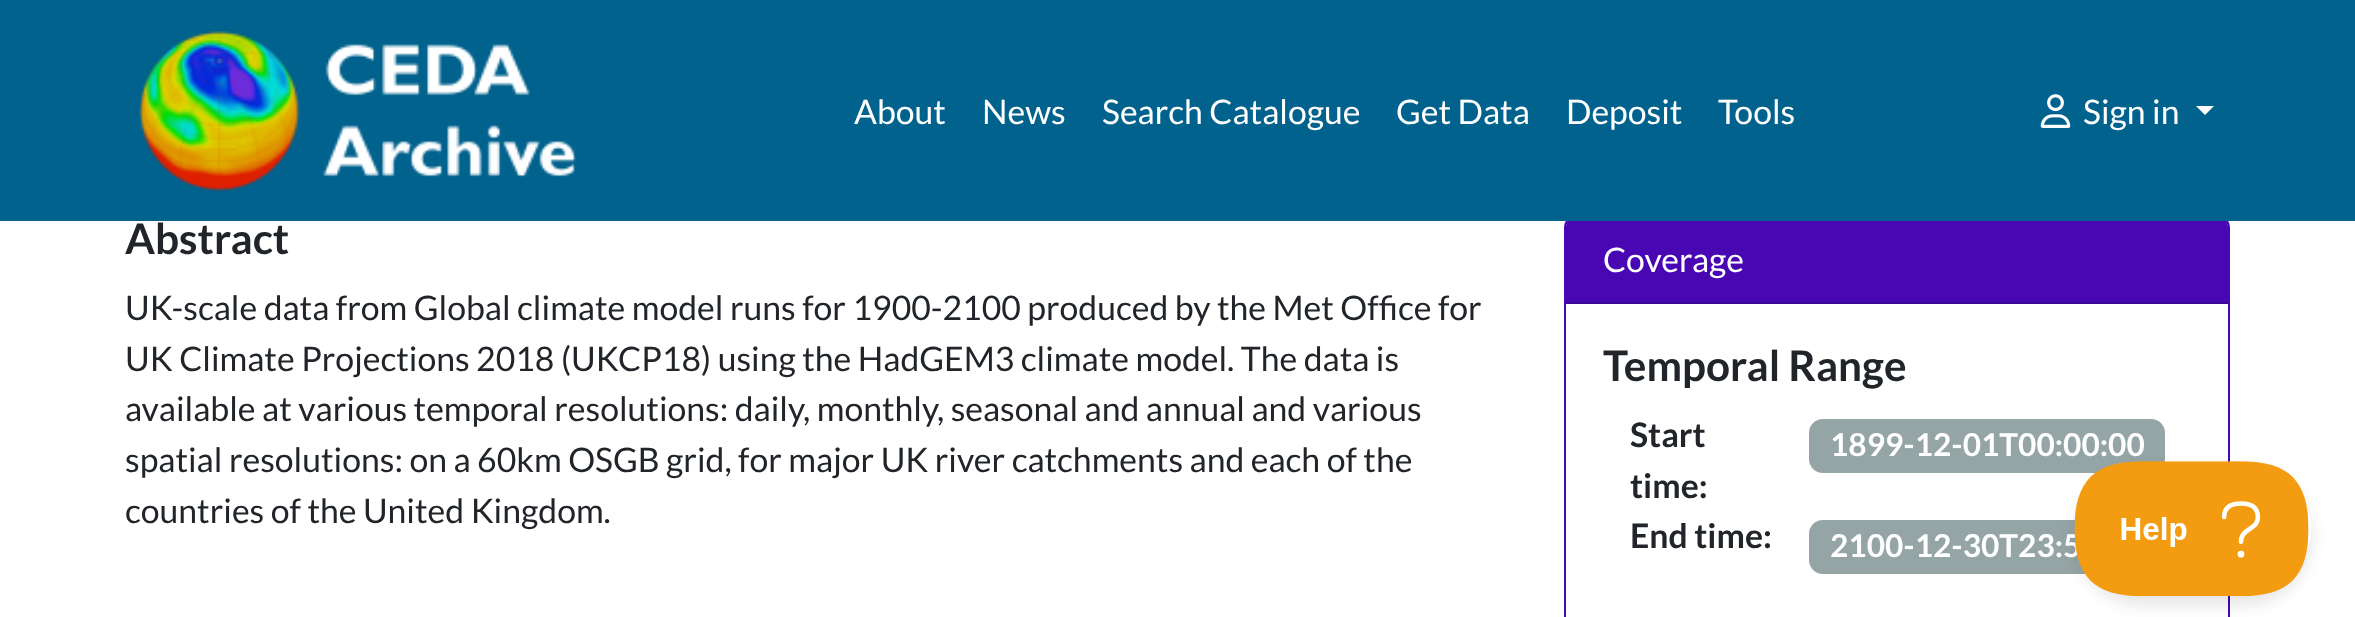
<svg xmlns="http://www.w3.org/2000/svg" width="2355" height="617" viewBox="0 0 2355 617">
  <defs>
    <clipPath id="clip1"><path d="M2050 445H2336V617H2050ZM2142.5 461H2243.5C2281 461 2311 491 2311 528.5C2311 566 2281 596 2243.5 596H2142.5C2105 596 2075 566 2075 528.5C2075 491 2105 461 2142.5 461Z" clip-rule="evenodd"/></clipPath>
  </defs>
  <rect width="100%" height="100%" fill="#fff"/>
  <rect x="1565" y="215" width="664" height="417" rx="13" fill="none" stroke="#4807b3" stroke-width="2"/>
  <path d="M1577 216H2217C2223 216 2228 221 2228 227V304H1566V227C1566 221 1571 216 1577 216Z" fill="#4807b3"/>
  <path d="M0 0h2355v221H0z" fill="#00628d"/>
  <image x="139" y="31" width="438" height="161" href="img/1.png"/>
  <image x="2040" y="94" width="31" height="34" href="img/2.png"/>
  <path d="M2196 106H2214L2205 115Z" fill="#fff"/>
  <path d="M1566 302h662v2H1566z" fill="#3b0693"/>
  <rect x="1809" y="419" width="356" height="54" rx="14" fill="#95a5a6"/>
  <rect x="1809" y="520" width="356" height="54" rx="14" fill="#95a5a6"/>
  <g clip-path="url(#clip1)">
    <rect x="2075" y="470" width="236" height="135" rx="67.5" fill="#0000001a" filter="blur(8px)"/>
  </g>
  <g font-family="Lato" font-size="33.75" fill="#fff">
    <text x="854" y="124">About</text>
    <text x="982" y="124">News</text>
    <text x="1102" y="124">Search Catalogue</text>
    <text x="1396" y="124">Get Data</text>
    <text x="1566" y="124">Deposit</text>
    <text x="1718" y="124">Tools</text>
    <text x="2083" y="124">Sign in</text>
  </g>
  <text x="125" y="254" font-family="Lato" font-size="42.25" font-weight="bold" fill="#212529">Abstract</text>
  <g font-family="Lato" font-size="33.75" fill="#212529">
    <text x="125" y="320">UK-scale data from Global climate model runs for 1900-2100 produced by the Met Office for</text>
    <text x="125" y="371">UK Climate Projections 2018 (UKCP18) using the HadGEM3 climate model. The data is</text>
    <text x="125" y="421">available at various temporal resolutions: daily, monthly, seasonal and annual and various</text>
    <text x="125" y="472">spatial resolutions: on a 60km OSGB grid, for major UK river catchments and each of the</text>
    <text x="125" y="523">countries of the United Kingdom.</text>
  </g>
  <text x="1603" y="272" font-family="Lato" font-size="33.75" fill="#fff">Coverage</text>
  <text x="1603" y="381" font-family="Lato" font-size="42.25" font-weight="bold" fill="#212529">Temporal Range</text>
  <g font-family="Lato" font-size="33.75" font-weight="bold" fill="#212529">
    <text x="1630" y="447">Start</text>
    <text x="1630" y="498">time:</text>
  </g>
  <text x="1830" y="456" font-family="Lato" font-size="31.6" font-weight="bold" fill="#fff">1899-12-01T00:00:00</text>
  <text x="1630" y="548" font-family="Lato" font-size="33.75" font-weight="bold" fill="#212529">End time:</text>
  <text x="1830" y="557" font-family="Lato" font-size="31.6" font-weight="bold" fill="#fff">2100-12-30T23:5</text>
  <image x="2074" y="461" width="235" height="136" href="img/3.png"/>
</svg>
